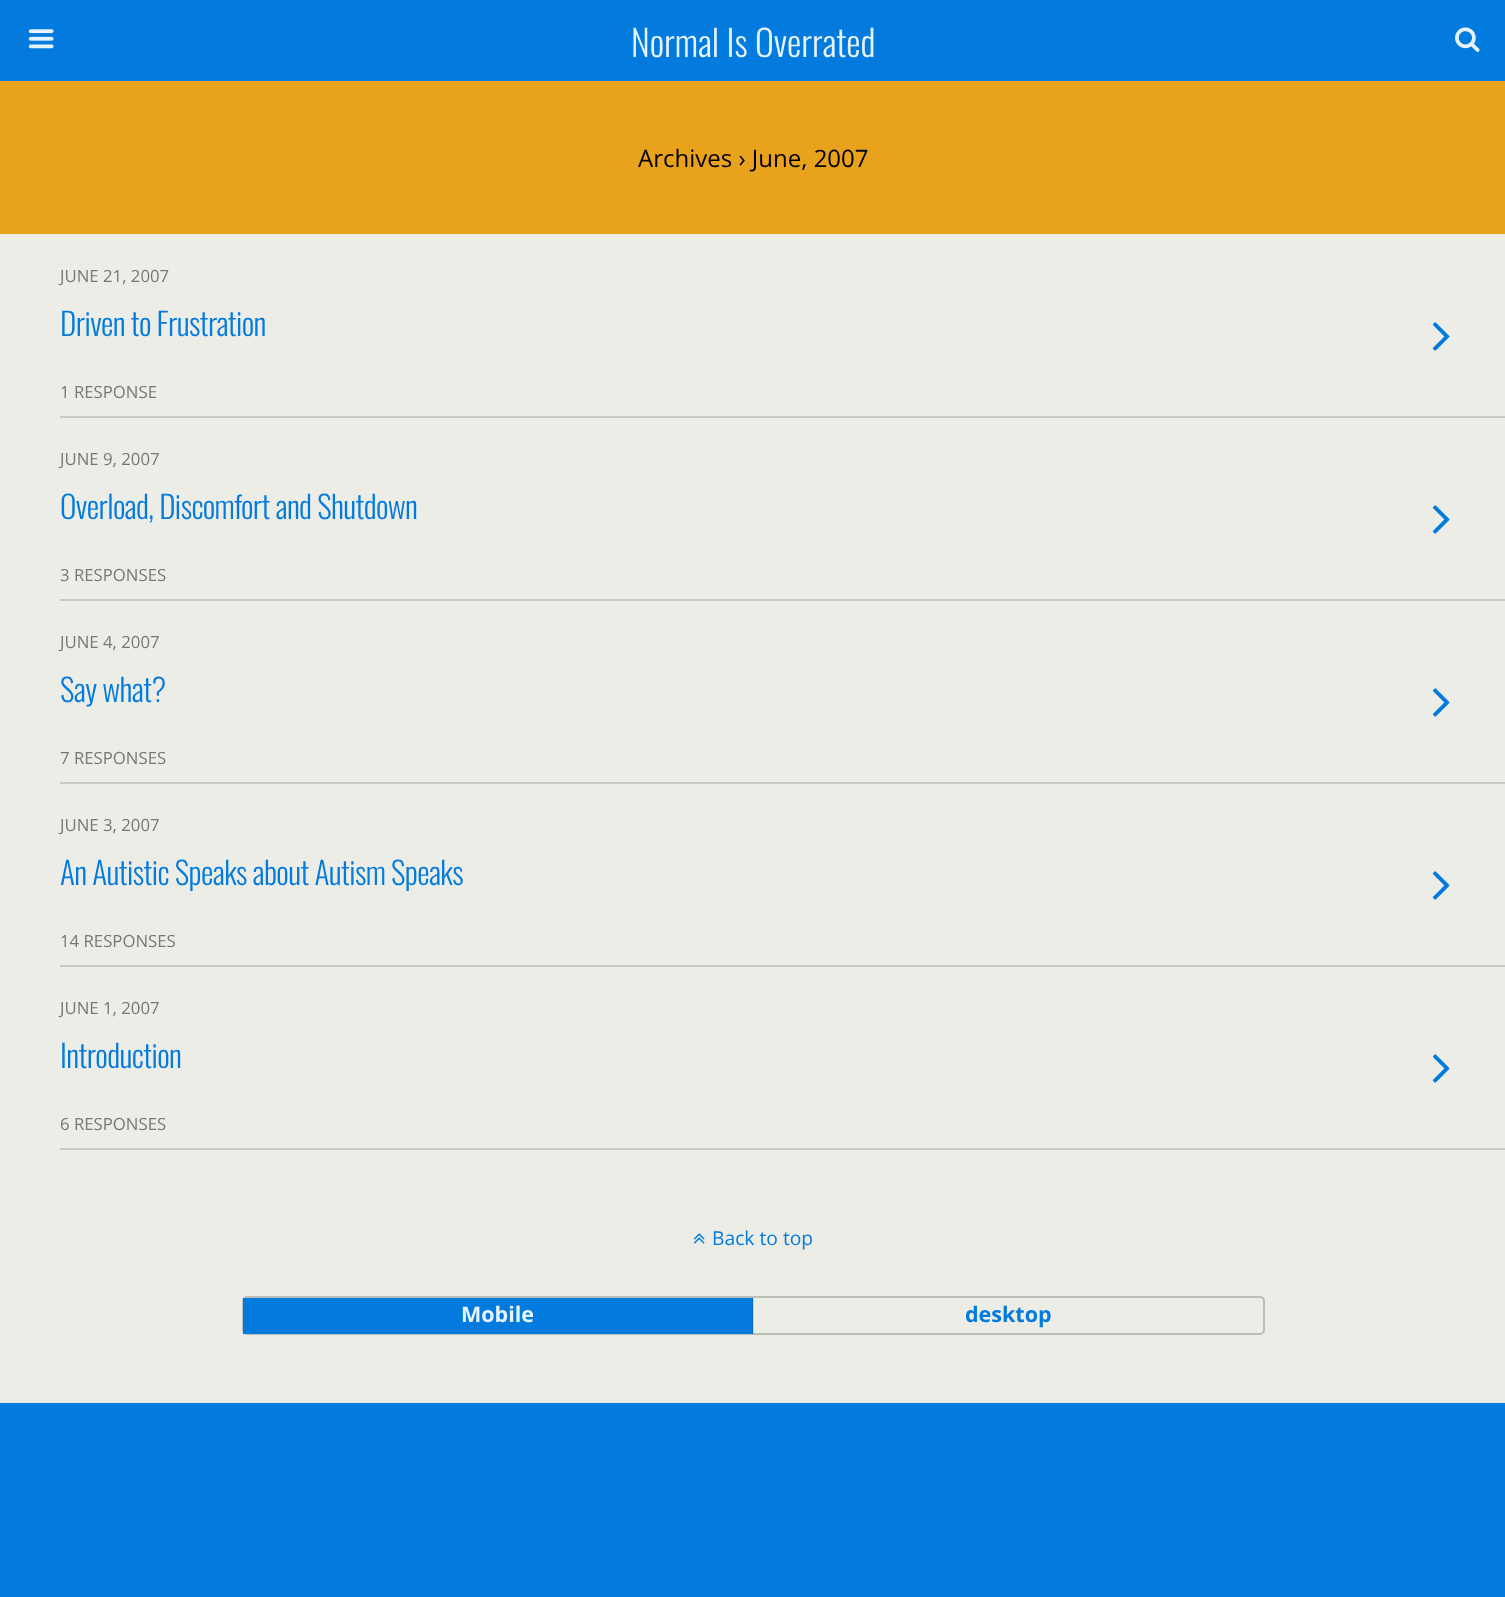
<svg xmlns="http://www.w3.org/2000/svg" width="1505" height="1597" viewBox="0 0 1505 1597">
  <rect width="100%" height="100%" fill="#037add"/>
  <path d="M0 234h1505v1169H0z" fill="#edede7"/>
  <image x="28" y="29" width="26" height="20" href="img/1.png"/>
  <image x="1455" y="27" width="25" height="25" href="img/2.png"/>
  <path d="M0 81h1505v153H0z" fill="#e8a21c"/>
  <image x="1432" y="322" width="18" height="29" href="img/3.png"/>
  <path d="M60 416h1445v2H60z" fill="#c9c9c4"/>
  <image x="1432" y="505" width="18" height="29" href="img/3.png"/>
  <path d="M60 599h1445v2H60z" fill="#c9c9c4"/>
  <image x="1432" y="688" width="18" height="29" href="img/3.png"/>
  <path d="M60 782h1445v2H60z" fill="#c9c9c4"/>
  <image x="1432" y="871" width="18" height="29" href="img/3.png"/>
  <path d="M60 965h1445v2H60z" fill="#c9c9c4"/>
  <image x="1432" y="1054" width="18" height="29" href="img/3.png"/>
  <path d="M60 1148h1445v2H60z" fill="#c9c9c4"/>
  <image x="693" y="1233" width="12" height="11" href="img/4.png"/>
  <rect x="243" y="1297" width="1021" height="37" rx="4" fill="none" stroke="#bebeb9" stroke-width="2"/>
  <path d="M243 1298h510v36H243z" fill="#037add"/>
  <path d="M752 1298h2v36H752z" fill="#0000001a"/>
  <text x="631" y="57" font-family="Oswald" font-size="36" font-weight="300" fill="#e6f2fc">Normal Is Overrated</text>
  <text x="638" y="167" font-family="Open Sans" font-size="24" fill="#000">Archives › June, 2007</text>
  <text x="60" y="282" font-family="Open Sans" font-size="16.75" fill="#777774">JUNE 21, 2007</text>
  <text x="60" y="336" font-family="Oswald" font-size="31.25" font-weight="300" letter-spacing="-0.6" fill="#037add">Driven to Frustration</text>
  <g font-family="Open Sans" font-size="16.75" fill="#777774">
    <text x="60" y="398">1 RESPONSE</text>
    <text x="60" y="465">JUNE 9, 2007</text>
  </g>
  <text x="60" y="519" font-family="Oswald" font-size="31.25" font-weight="300" letter-spacing="-0.6" fill="#037add">Overload, Discomfort and Shutdown</text>
  <g font-family="Open Sans" font-size="16.75" fill="#777774">
    <text x="60" y="581">3 RESPONSES</text>
    <text x="60" y="648">JUNE 4, 2007</text>
  </g>
  <text x="60" y="702" font-family="Oswald" font-size="31.25" font-weight="300" letter-spacing="-0.6" fill="#037add">Say what?</text>
  <g font-family="Open Sans" font-size="16.75" fill="#777774">
    <text x="60" y="764">7 RESPONSES</text>
    <text x="60" y="831">JUNE 3, 2007</text>
  </g>
  <text x="60" y="885" font-family="Oswald" font-size="31.25" font-weight="300" letter-spacing="-0.6" fill="#037add">An Autistic Speaks about Autism Speaks</text>
  <g font-family="Open Sans" font-size="16.75" fill="#777774">
    <text x="60" y="947">14 RESPONSES</text>
    <text x="60" y="1014">JUNE 1, 2007</text>
  </g>
  <text x="60" y="1068" font-family="Oswald" font-size="31.25" font-weight="300" letter-spacing="-0.6" fill="#037add">Introduction</text>
  <text x="60" y="1130" font-family="Open Sans" font-size="16.75" fill="#777774">6 RESPONSES</text>
  <text x="712" y="1245" font-family="Open Sans" font-size="19.25" fill="#037add">Back to top</text>
  <text x="461" y="1322" font-family="Open Sans" font-size="21.5" font-weight="bold" fill="#e6f2fc">Mobile</text>
  <text x="965" y="1322" font-family="Open Sans" font-size="21.5" font-weight="bold" fill="#037add">desktop</text>
</svg>
